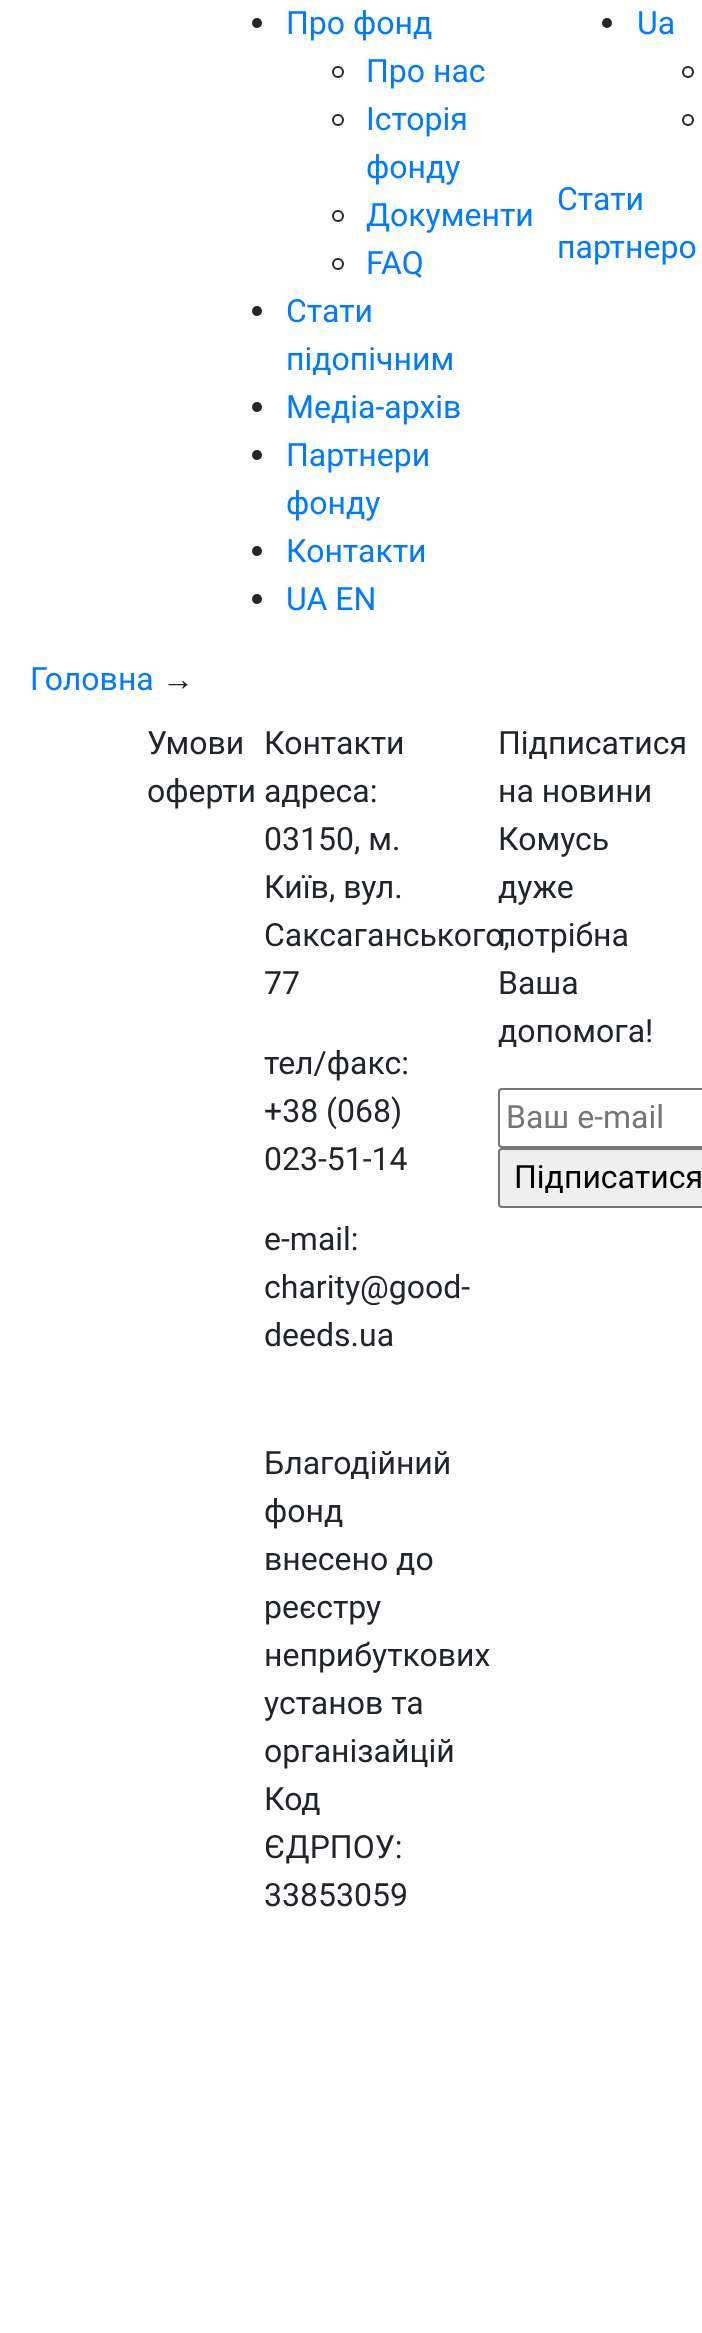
<svg xmlns="http://www.w3.org/2000/svg" width="702" height="2333" viewBox="0 0 702 2333">
  <rect width="100%" height="100%" fill="#fff"/>
  <circle cx="257" cy="23" r="5" fill="#212529"/>
  <circle cx="338" cy="72" r="5" fill="none" stroke="#212529" stroke-width="2"/>
  <circle cx="338" cy="120" r="5" fill="none" stroke="#212529" stroke-width="2"/>
  <circle cx="338" cy="216" r="5" fill="none" stroke="#212529" stroke-width="2"/>
  <circle cx="338" cy="264" r="5" fill="none" stroke="#212529" stroke-width="2"/>
  <circle cx="257" cy="311" r="5" fill="#212529"/>
  <circle cx="257" cy="407" r="5" fill="#212529"/>
  <circle cx="257" cy="455" r="5" fill="#212529"/>
  <circle cx="257" cy="551" r="5" fill="#212529"/>
  <circle cx="257" cy="599" r="5" fill="#212529"/>
  <circle cx="607" cy="23" r="5" fill="#212529"/>
  <circle cx="688" cy="72" r="5" fill="none" stroke="#212529" stroke-width="2"/>
  <circle cx="688" cy="120" r="5" fill="none" stroke="#212529" stroke-width="2"/>
  <rect x="499" y="1089" width="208" height="58" rx="3" fill="none" stroke="#767676" stroke-width="2"/>
  <rect x="499" y="1149" width="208" height="58" rx="3" fill="#efefef" stroke="#767676" stroke-width="2"/>
  <g font-family="Roboto" font-size="32" fill="#007bff">
    <text x="286" y="34">Про фонд</text>
    <text x="366" y="82">Про нас</text>
    <text x="366" y="130">Історія</text>
    <text x="366" y="178">фонду</text>
    <text x="366" y="226">Документи</text>
    <text x="366" y="274">FAQ</text>
    <text x="286" y="322">Стати</text>
    <text x="286" y="370">підопічним</text>
    <text x="286" y="418">Медіа-архів</text>
    <text x="286" y="466">Партнери</text>
    <text x="286" y="514">фонду</text>
    <text x="286" y="562">Контакти</text>
    <text x="286" y="610">UA EN</text>
    <text x="637" y="34">Ua</text>
    <text x="557" y="210">Стати</text>
    <text x="557" y="258">партнеро</text>
    <text x="30" y="690">Головна</text>
  </g>
  <text x="162" y="690" font-family="Liberation Sans" font-size="32" fill="#212529">→</text>
  <g font-family="Roboto" font-size="32" fill="#212529">
    <text x="147" y="754">Умови</text>
    <text x="147" y="802">оферти адреса:</text>
    <text x="264" y="754">Контакти</text>
    <text x="264" y="850">03150, м.</text>
    <text x="264" y="898">Київ, вул.</text>
    <text x="264" y="946">Саксаганського,</text>
    <text x="264" y="994">77</text>
    <text x="264" y="1074">тел/факс:</text>
    <text x="264" y="1122">+38 (068)</text>
    <text x="264" y="1170">023-51-14</text>
    <text x="264" y="1250">e-mail:</text>
    <text x="264" y="1298">charity@good-</text>
    <text x="264" y="1346">deeds.ua</text>
    <text x="264" y="1474">Благодійний</text>
    <text x="264" y="1522">фонд</text>
    <text x="264" y="1570">внесено до</text>
    <text x="264" y="1618">реєстру</text>
    <text x="264" y="1666">неприбуткових</text>
    <text x="264" y="1714">установ та</text>
    <text x="264" y="1762">організайцій</text>
    <text x="264" y="1810">Код</text>
    <text x="264" y="1858">ЄДРПОУ:</text>
    <text x="264" y="1906">33853059</text>
    <text x="498" y="754">Підписатися</text>
    <text x="498" y="802">на новини</text>
    <text x="498" y="850">Комусь</text>
    <text x="498" y="898">дуже</text>
    <text x="498" y="946">потрібна</text>
    <text x="498" y="994">Ваша</text>
    <text x="498" y="1042">допомога!</text>
  </g>
  <text x="506" y="1128" font-family="Roboto" font-size="32" fill="#757575">Ваш e-mail</text>
  <text x="514" y="1188" font-family="Roboto" font-size="32" fill="#000">Підписатися</text>
</svg>
